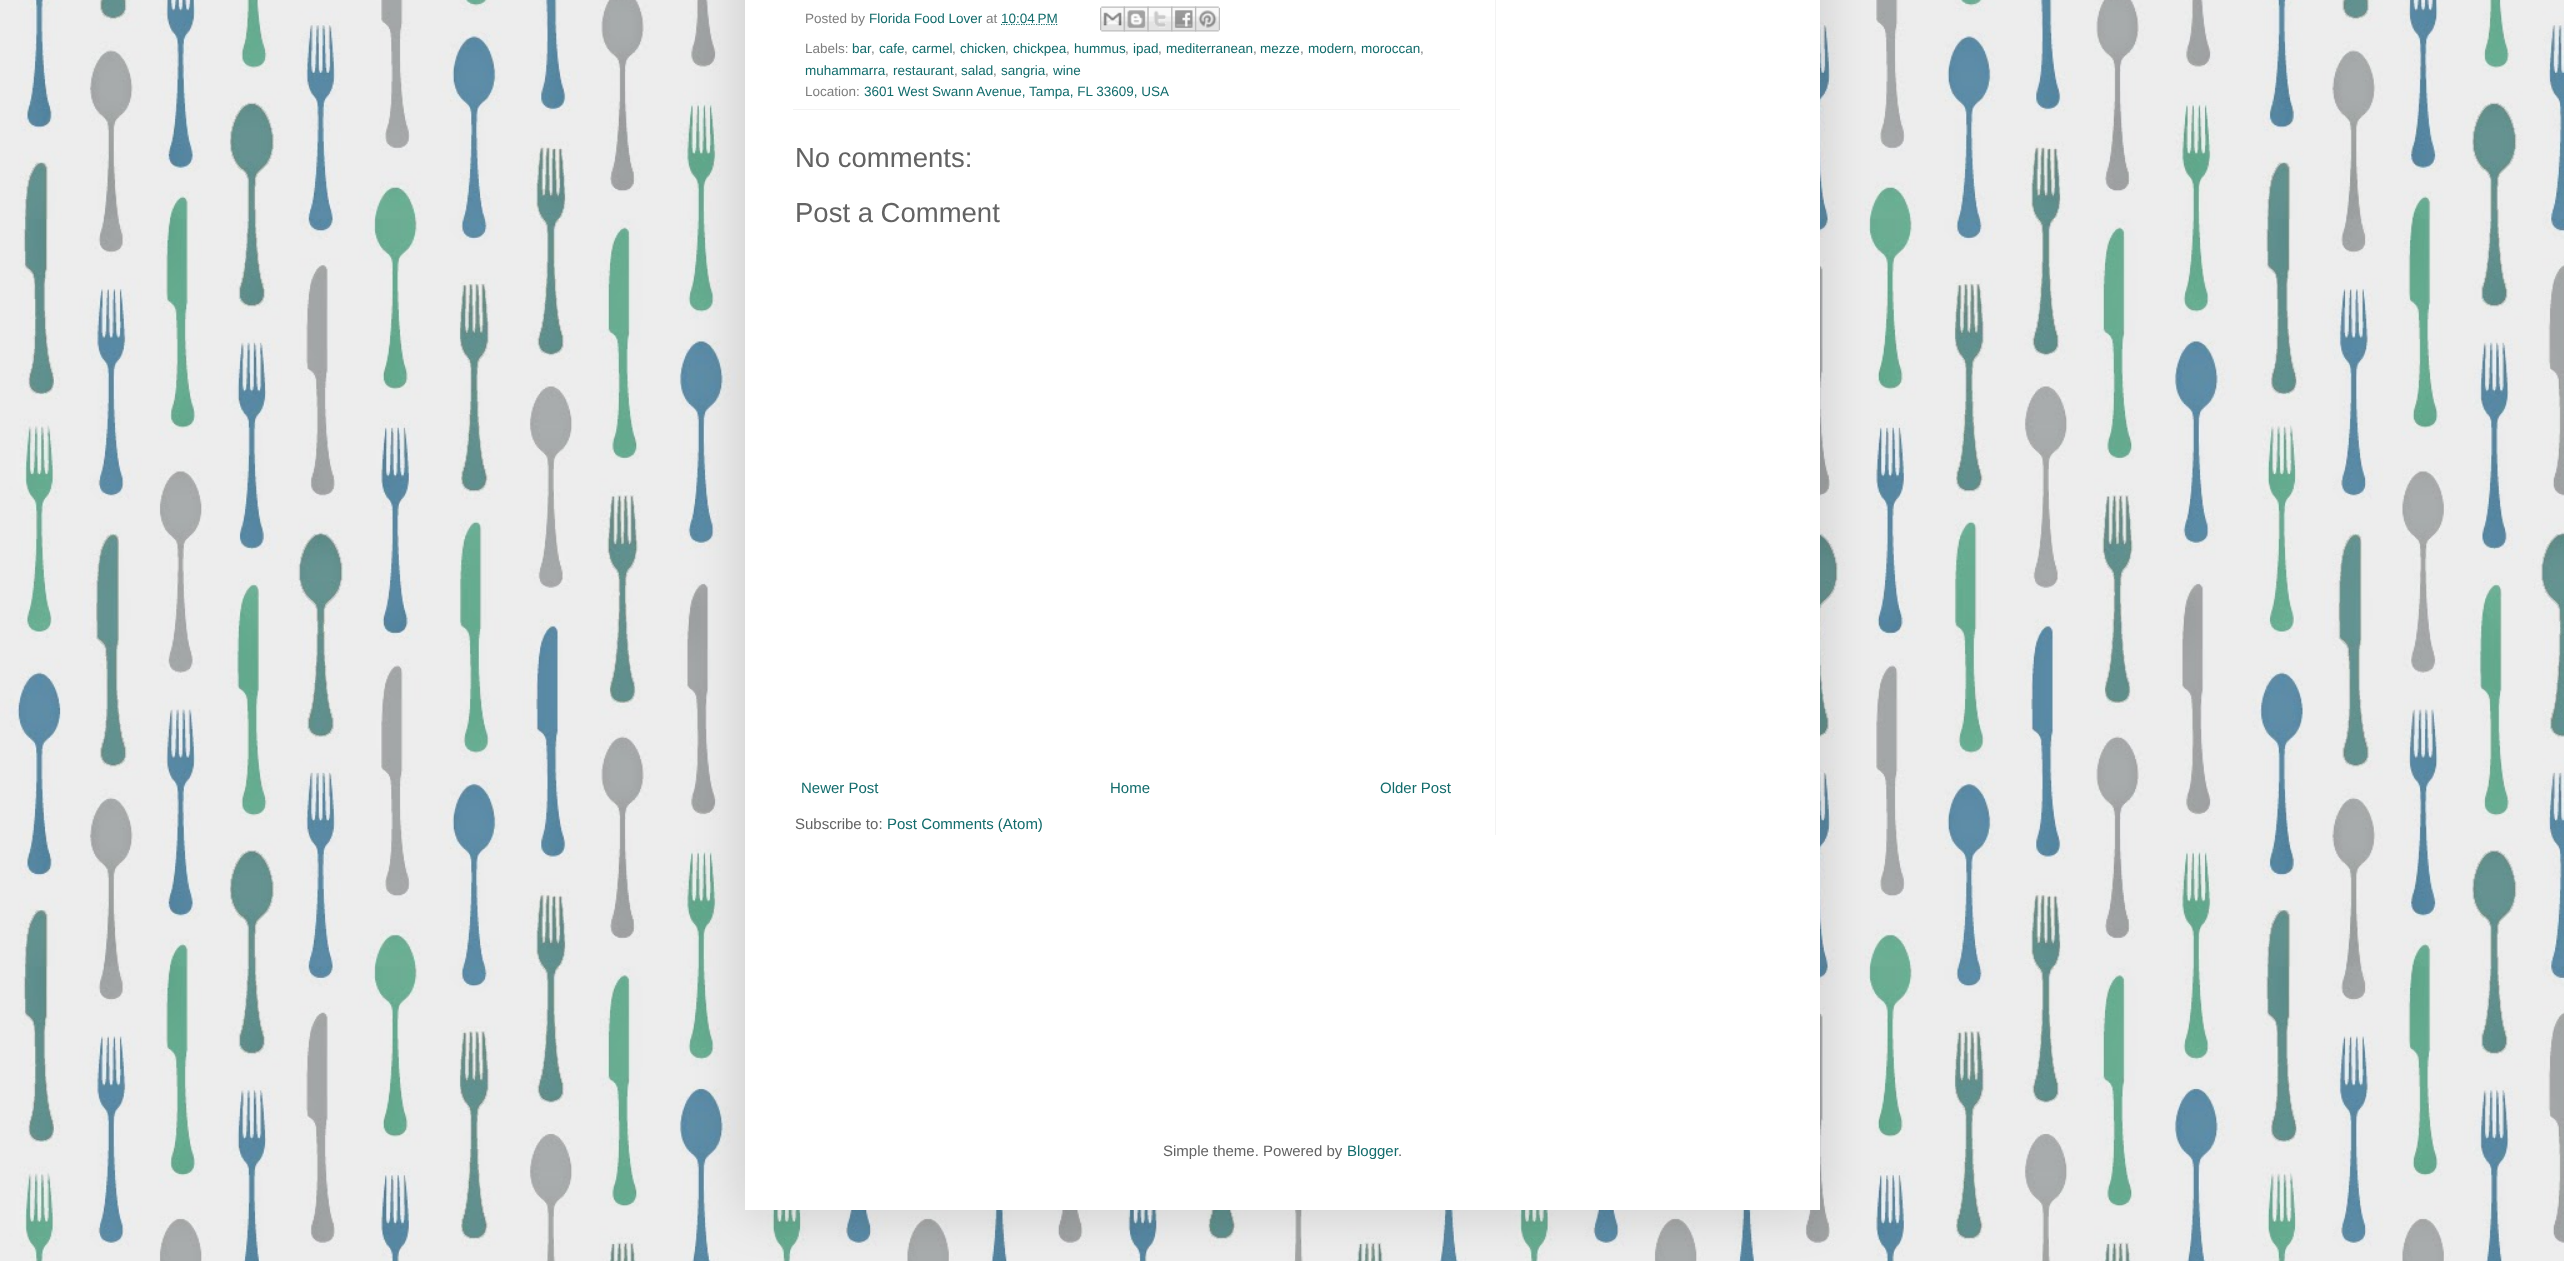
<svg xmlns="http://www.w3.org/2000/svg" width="2564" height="1261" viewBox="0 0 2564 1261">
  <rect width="100%" height="100%" fill="#fff"/>
  <image x="0" y="0" width="2564" height="1261" href="img/1.png"/>
  <path d="M745 -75h1075v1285H745z" fill="#00000026" filter="blur(25px)"/>
  <path d="M745 0h1075v1210H745z" fill="#fff"/>
  <path d="M793 109h667v1H793z" fill="#f3f3f3"/>
  <path d="M1001 24.5H1057.5" fill="none" stroke="#126c6c" stroke-width="1.2" stroke-dasharray="1.25 1.25"/>
  <image x="1100" y="6" width="25" height="26" href="img/2.png"/>
  <image x="1123" y="6" width="26" height="26" href="img/3.png"/>
  <image x="1147" y="6" width="26" height="26" href="img/4.png"/>
  <image x="1171" y="6" width="26" height="26" href="img/5.png"/>
  <image x="1195" y="6" width="25" height="26" href="img/6.png"/>
  <path d="M1495 0h1v835H1495z" fill="#f3f3f3"/>
  <text x="805" y="23" font-family="Liberation Sans" font-size="13.5" fill="#7e7e7e">Posted by</text>
  <text x="869" y="23" font-family="Liberation Sans" font-size="13.5" fill="#126c6c">Florida Food Lover</text>
  <text x="986" y="23" font-family="Liberation Sans" font-size="13.5" fill="#7e7e7e">at</text>
  <text x="1001" y="23" font-family="Liberation Sans" font-size="13.5" fill="#126c6c">10:04 PM</text>
  <text x="805" y="53" font-family="Liberation Sans" font-size="13.5" fill="#7e7e7e">Labels:</text>
  <text x="852" y="53" font-family="Liberation Sans" font-size="13.5" fill="#126c6c">bar</text>
  <text x="871" y="53" font-family="Liberation Sans" font-size="13.5" fill="#7e7e7e">,</text>
  <text x="879" y="53" font-family="Liberation Sans" font-size="13.5" fill="#126c6c">cafe</text>
  <text x="904" y="53" font-family="Liberation Sans" font-size="13.5" fill="#7e7e7e">,</text>
  <text x="912" y="53" font-family="Liberation Sans" font-size="13.5" fill="#126c6c">carmel</text>
  <text x="952" y="53" font-family="Liberation Sans" font-size="13.5" fill="#7e7e7e">,</text>
  <text x="960" y="53" font-family="Liberation Sans" font-size="13.5" fill="#126c6c">chicken</text>
  <text x="1005" y="53" font-family="Liberation Sans" font-size="13.5" fill="#7e7e7e">,</text>
  <text x="1013" y="53" font-family="Liberation Sans" font-size="13.5" fill="#126c6c">chickpea</text>
  <text x="1066" y="53" font-family="Liberation Sans" font-size="13.5" fill="#7e7e7e">,</text>
  <text x="1074" y="53" font-family="Liberation Sans" font-size="13.5" fill="#126c6c">hummus</text>
  <text x="1125" y="53" font-family="Liberation Sans" font-size="13.5" fill="#7e7e7e">,</text>
  <text x="1133" y="53" font-family="Liberation Sans" font-size="13.5" fill="#126c6c">ipad</text>
  <text x="1158" y="53" font-family="Liberation Sans" font-size="13.5" fill="#7e7e7e">,</text>
  <text x="1166" y="53" font-family="Liberation Sans" font-size="13.5" fill="#126c6c">mediterranean</text>
  <text x="1253" y="53" font-family="Liberation Sans" font-size="13.5" fill="#7e7e7e">,</text>
  <text x="1260" y="53" font-family="Liberation Sans" font-size="13.5" fill="#126c6c">mezze</text>
  <text x="1300" y="53" font-family="Liberation Sans" font-size="13.5" fill="#7e7e7e">,</text>
  <text x="1308" y="53" font-family="Liberation Sans" font-size="13.5" fill="#126c6c">modern</text>
  <text x="1353" y="53" font-family="Liberation Sans" font-size="13.5" fill="#7e7e7e">,</text>
  <text x="1361" y="53" font-family="Liberation Sans" font-size="13.5" fill="#126c6c">moroccan</text>
  <text x="1420" y="53" font-family="Liberation Sans" font-size="13.5" fill="#7e7e7e">,</text>
  <text x="805" y="75" font-family="Liberation Sans" font-size="13.5" fill="#126c6c">muhammarra</text>
  <text x="885" y="75" font-family="Liberation Sans" font-size="13.5" fill="#7e7e7e">,</text>
  <text x="893" y="75" font-family="Liberation Sans" font-size="13.5" fill="#126c6c">restaurant</text>
  <text x="954" y="75" font-family="Liberation Sans" font-size="13.5" fill="#7e7e7e">,</text>
  <text x="961" y="75" font-family="Liberation Sans" font-size="13.5" fill="#126c6c">salad</text>
  <text x="993" y="75" font-family="Liberation Sans" font-size="13.5" fill="#7e7e7e">,</text>
  <text x="1001" y="75" font-family="Liberation Sans" font-size="13.5" fill="#126c6c">sangria</text>
  <text x="1045" y="75" font-family="Liberation Sans" font-size="13.5" fill="#7e7e7e">,</text>
  <text x="1053" y="75" font-family="Liberation Sans" font-size="13.5" fill="#126c6c">wine</text>
  <text x="805" y="96" font-family="Liberation Sans" font-size="13.5" fill="#7e7e7e">Location:</text>
  <text x="864" y="96" font-family="Liberation Sans" font-size="13.5" fill="#126c6c">3601 West Swann Avenue, Tampa, FL 33609, USA</text>
  <g font-family="Liberation Sans" font-size="27.5" fill="#636363">
    <text x="795" y="167">No comments:</text>
    <text x="795" y="222">Post a Comment</text>
  </g>
  <g font-family="Liberation Sans" font-size="15" fill="#126c6c">
    <text x="801" y="793">Newer Post</text>
    <text x="1110" y="793">Home</text>
    <text x="1380" y="793">Older Post</text>
  </g>
  <text x="795" y="829" font-family="Liberation Sans" font-size="15" fill="#636363">Subscribe to:</text>
  <text x="887" y="829" font-family="Liberation Sans" font-size="15" fill="#126c6c">Post Comments (Atom)</text>
  <text x="1163" y="1156" font-family="Liberation Sans" font-size="15" fill="#636363">Simple theme. Powered by</text>
  <text x="1347" y="1156" font-family="Liberation Sans" font-size="15" fill="#126c6c">Blogger</text>
  <text x="1398" y="1156" font-family="Liberation Sans" font-size="15" fill="#636363">.</text>
</svg>
